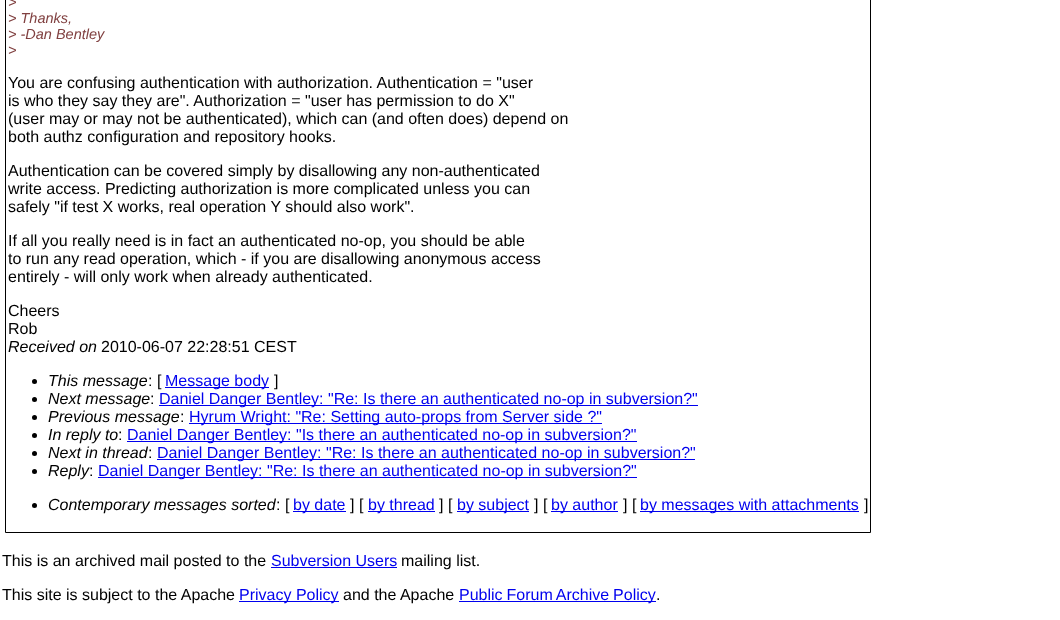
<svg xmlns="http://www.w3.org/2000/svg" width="1060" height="620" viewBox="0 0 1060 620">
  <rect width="100%" height="100%" fill="#fff"/>
  <path d="M5.5 -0.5h865v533H5.5z" fill="none" stroke="#000"/>
  <circle cx="34.5" cy="381.5" r="2.5" fill="#000"/>
  <path d="M165 387h104v1H165z" fill="#00e"/>
  <circle cx="34.5" cy="399.5" r="2.5" fill="#000"/>
  <path d="M159 405h539v1H159z" fill="#00e"/>
  <circle cx="34.5" cy="417.5" r="2.5" fill="#000"/>
  <path d="M189 423h413v1H189z" fill="#00e"/>
  <circle cx="34.5" cy="435.5" r="2.5" fill="#000"/>
  <path d="M127 441h510v1H127z" fill="#00e"/>
  <circle cx="34.5" cy="453.5" r="2.5" fill="#000"/>
  <path d="M157 459h538v1H157z" fill="#00e"/>
  <circle cx="34.5" cy="471.5" r="2.5" fill="#000"/>
  <path d="M98 477h539v1H98z" fill="#00e"/>
  <circle cx="34.5" cy="505.5" r="2.5" fill="#000"/>
  <path d="M293 511h53v1H293z" fill="#00e"/>
  <path d="M368 511h67v1H368z" fill="#00e"/>
  <path d="M457 511h72v1H457z" fill="#00e"/>
  <path d="M551 511h67v1H551z" fill="#00e"/>
  <path d="M640 511h219v1H640z" fill="#00e"/>
  <path d="M271 567h126v1H271z" fill="#00e"/>
  <path d="M239 601h100v1H239z" fill="#00e"/>
  <path d="M459 601h197v1H459z" fill="#00e"/>
  <g font-family="Liberation Sans" font-size="14.5" font-style="italic" fill="#804040">
    <text x="8" y="7">&gt;</text>
    <text x="8" y="23">&gt; Thanks,</text>
    <text x="8" y="39">&gt; -Dan Bentley</text>
    <text x="8" y="55">&gt;</text>
  </g>
  <g font-family="Liberation Sans" font-size="16" fill="#000">
    <text x="8" y="88">You are confusing authentication with authorization. Authentication = "user</text>
    <text x="8" y="106">is who they say they are". Authorization = "user has permission to do X"</text>
    <text x="8" y="124">(user may or may not be authenticated), which can (and often does) depend on</text>
    <text x="8" y="142">both authz configuration and repository hooks.</text>
    <text x="8" y="176">Authentication can be covered simply by disallowing any non-authenticated</text>
    <text x="8" y="194">write access. Predicting authorization is more complicated unless you can</text>
    <text x="8" y="212">safely "if test X works, real operation Y should also work".</text>
    <text x="8" y="246">If all you really need is in fact an authenticated no-op, you should be able</text>
    <text x="8" y="264">to run any read operation, which - if you are disallowing anonymous access</text>
    <text x="8" y="282">entirely - will only work when already authenticated.</text>
    <text x="8" y="316">Cheers</text>
    <text x="8" y="334">Rob</text>
  </g>
  <text x="8" y="352" font-family="Liberation Sans" font-size="16" font-style="italic" fill="#000">Received on</text>
  <text x="101" y="352" font-family="Liberation Sans" font-size="16" fill="#000">2010-06-07 22:28:51 CEST</text>
  <text x="48" y="386" font-family="Liberation Sans" font-size="16" font-style="italic" fill="#000">This message</text>
  <text x="148" y="386" font-family="Liberation Sans" font-size="16" fill="#000">: [</text>
  <text x="165" y="386" font-family="Liberation Sans" font-size="16" fill="#00e">Message body</text>
  <text x="274" y="386" font-family="Liberation Sans" font-size="16" fill="#000">]</text>
  <text x="48" y="404" font-family="Liberation Sans" font-size="16" font-style="italic" fill="#000">Next message</text>
  <text x="150" y="404" font-family="Liberation Sans" font-size="16" fill="#000">:</text>
  <text x="159" y="404" font-family="Liberation Sans" font-size="16" fill="#00e">Daniel Danger Bentley: "Re: Is there an authenticated no-op in subversion?"</text>
  <text x="48" y="422" font-family="Liberation Sans" font-size="16" font-style="italic" fill="#000">Previous message</text>
  <text x="180" y="422" font-family="Liberation Sans" font-size="16" fill="#000">:</text>
  <text x="189" y="422" font-family="Liberation Sans" font-size="16" fill="#00e">Hyrum Wright: "Re: Setting auto-props from Server side ?"</text>
  <text x="48" y="440" font-family="Liberation Sans" font-size="16" font-style="italic" fill="#000">In reply to</text>
  <text x="118" y="440" font-family="Liberation Sans" font-size="16" fill="#000">:</text>
  <text x="127" y="440" font-family="Liberation Sans" font-size="16" fill="#00e">Daniel Danger Bentley: "Is there an authenticated no-op in subversion?"</text>
  <text x="48" y="458" font-family="Liberation Sans" font-size="16" font-style="italic" fill="#000">Next in thread</text>
  <text x="148" y="458" font-family="Liberation Sans" font-size="16" fill="#000">:</text>
  <text x="157" y="458" font-family="Liberation Sans" font-size="16" fill="#00e">Daniel Danger Bentley: "Re: Is there an authenticated no-op in subversion?"</text>
  <text x="48" y="476" font-family="Liberation Sans" font-size="16" font-style="italic" fill="#000">Reply</text>
  <text x="89" y="476" font-family="Liberation Sans" font-size="16" fill="#000">:</text>
  <text x="98" y="476" font-family="Liberation Sans" font-size="16" fill="#00e">Daniel Danger Bentley: "Re: Is there an authenticated no-op in subversion?"</text>
  <text x="48" y="510" font-family="Liberation Sans" font-size="16" font-style="italic" fill="#000">Contemporary messages sorted</text>
  <text x="276" y="510" font-family="Liberation Sans" font-size="16" fill="#000">: [</text>
  <text x="293" y="510" font-family="Liberation Sans" font-size="16" fill="#00e">by date</text>
  <text x="350" y="510" font-family="Liberation Sans" font-size="16" fill="#000">] [</text>
  <text x="368" y="510" font-family="Liberation Sans" font-size="16" fill="#00e">by thread</text>
  <text x="439" y="510" font-family="Liberation Sans" font-size="16" fill="#000">] [</text>
  <text x="457" y="510" font-family="Liberation Sans" font-size="16" fill="#00e">by subject</text>
  <text x="534" y="510" font-family="Liberation Sans" font-size="16" fill="#000">] [</text>
  <text x="551" y="510" font-family="Liberation Sans" font-size="16" fill="#00e">by author</text>
  <text x="623" y="510" font-family="Liberation Sans" font-size="16" fill="#000">] [</text>
  <text x="640" y="510" font-family="Liberation Sans" font-size="16" fill="#00e">by messages with attachments</text>
  <g font-family="Liberation Sans" font-size="16" fill="#000">
    <text x="864" y="510">]</text>
    <text x="2" y="566">This is an archived mail posted to the</text>
  </g>
  <text x="271" y="566" font-family="Liberation Sans" font-size="16" fill="#00e">Subversion Users</text>
  <g font-family="Liberation Sans" font-size="16" fill="#000">
    <text x="401" y="566">mailing list.</text>
    <text x="2" y="600">This site is subject to the Apache</text>
  </g>
  <text x="239" y="600" font-family="Liberation Sans" font-size="16" fill="#00e">Privacy Policy</text>
  <text x="343" y="600" font-family="Liberation Sans" font-size="16" fill="#000">and the Apache</text>
  <text x="459" y="600" word-spacing="-0.5" font-family="Liberation Sans" font-size="16" fill="#00e">Public Forum Archive Policy</text>
  <text x="656" y="600" font-family="Liberation Sans" font-size="16" fill="#000">.</text>
</svg>
